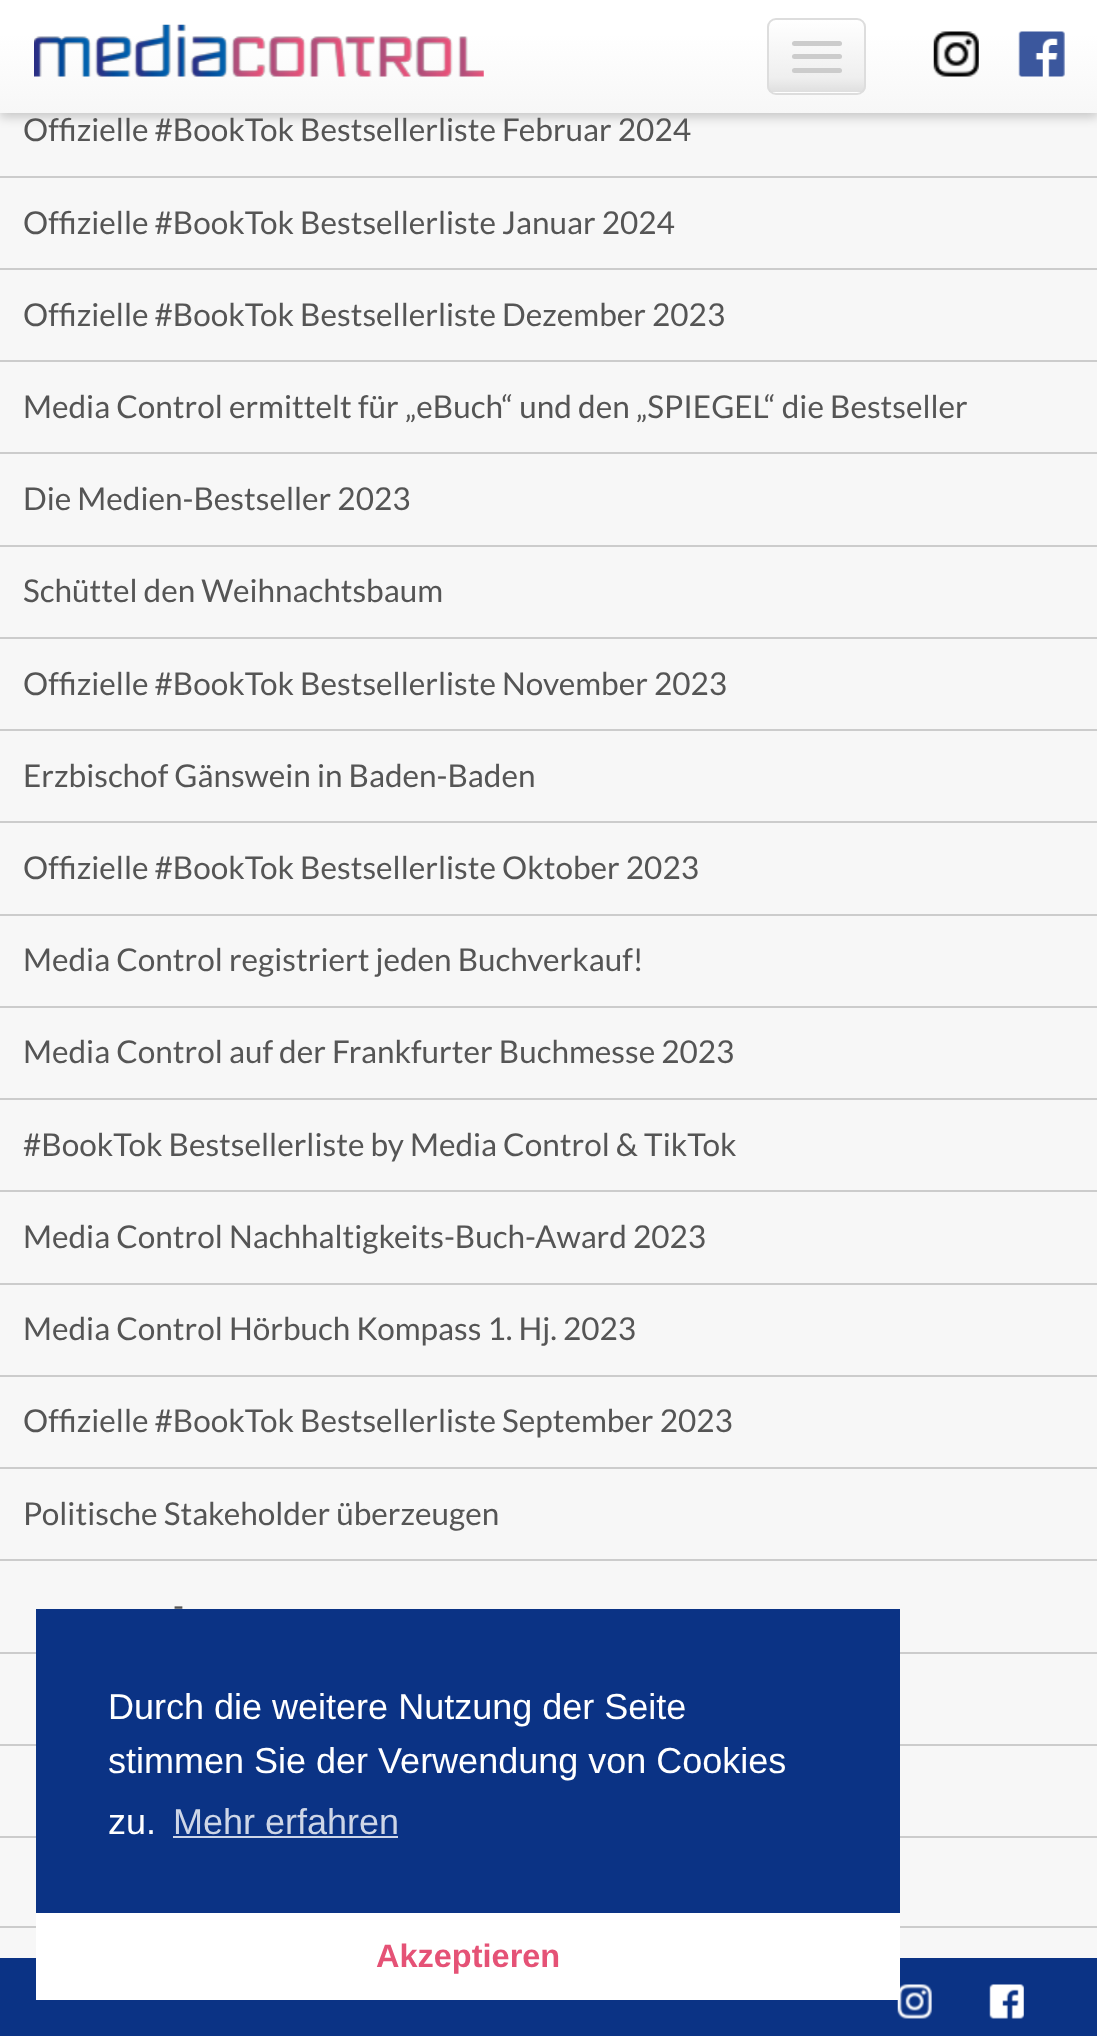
<svg xmlns="http://www.w3.org/2000/svg" width="1097" height="2036" viewBox="0 0 1097 2036">
  <defs>
    <linearGradient id="g1" gradientUnits="userSpaceOnUse" x1="549" y1="113" x2="549" y2="0"><stop offset="0" stop-color="#f7f7f7"/><stop offset="0.7" stop-color="#fff"/><stop offset="1" stop-color="#fff"/></linearGradient>
    <clipPath id="clip1"><rect x="767" y="18" width="99" height="77" rx="9"/></clipPath>
    <linearGradient id="g2" gradientUnits="userSpaceOnUse" x1="817" y1="92" x2="817" y2="20"><stop offset="0" stop-color="#dfdfdf"/><stop offset="0.2" stop-color="#efefef"/><stop offset="1" stop-color="#fff"/></linearGradient>
    <linearGradient id="g3" gradientUnits="userSpaceOnUse" x1="817" y1="164" x2="817" y2="92"><stop offset="0" stop-color="#dfdfdf"/><stop offset="0.2" stop-color="#efefef"/><stop offset="1" stop-color="#fff"/></linearGradient>
  </defs>
  <rect width="100%" height="100%" fill="#f7f7f7"/>
  <path d="M0 5h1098v112H0z" fill="#00000033" filter="blur(5.5px)"/>
  <path d="M0 0h1097v113H0z" fill="url(#g1)"/>
  <image x="34" y="24" width="450" height="53" href="img/1.png"/>
  <g clip-path="url(#clip1)">
    <path d="M767 20h99v72H767z" fill="url(#g2)"/>
    <path d="M767 92h99v3H767z" fill="url(#g3)"/>
  </g>
  <rect x="768" y="19" width="97" height="75" rx="8" fill="none" stroke="#ddd" stroke-width="2"/>
  <rect x="792" y="41" width="50" height="5" rx="2.5" fill="#ccc"/>
  <rect x="792" y="54" width="50" height="5" rx="2.5" fill="#ccc"/>
  <rect x="792" y="68" width="50" height="5" rx="2.5" fill="#ccc"/>
  <image x="933" y="31" width="46" height="46" href="img/2.png"/>
  <image x="1018" y="31" width="47" height="46" href="img/3.png"/>
  <path d="M0 176h1097v2H0z" fill="#ccc"/>
  <path d="M0 268h1097v2H0z" fill="#ccc"/>
  <path d="M0 360h1097v2H0z" fill="#ccc"/>
  <path d="M0 452h1097v2H0z" fill="#ccc"/>
  <path d="M0 545h1097v2H0z" fill="#ccc"/>
  <path d="M0 637h1097v2H0z" fill="#ccc"/>
  <path d="M0 729h1097v2H0z" fill="#ccc"/>
  <path d="M0 821h1097v2H0z" fill="#ccc"/>
  <path d="M0 914h1097v2H0z" fill="#ccc"/>
  <path d="M0 1006h1097v2H0z" fill="#ccc"/>
  <path d="M0 1098h1097v2H0z" fill="#ccc"/>
  <path d="M0 1190h1097v2H0z" fill="#ccc"/>
  <path d="M0 1283h1097v2H0z" fill="#ccc"/>
  <path d="M0 1375h1097v2H0z" fill="#ccc"/>
  <path d="M0 1467h1097v2H0z" fill="#ccc"/>
  <path d="M0 1559h1097v2H0z" fill="#ccc"/>
  <path d="M0 1652h1097v2H0z" fill="#ccc"/>
  <path d="M0 1744h1097v2H0z" fill="#ccc"/>
  <path d="M0 1836h1097v2H0z" fill="#ccc"/>
  <path d="M0 1926h1097v2H0z" fill="#ccc"/>
  <path d="M36 1609h864v304H36z" fill="#0b3385"/>
  <path d="M173 1836h225v2H173z" fill="#ced6e7"/>
  <path d="M0 1958h1097v78H0z" fill="#0b3385"/>
  <image x="897" y="1984" width="35" height="35" href="img/4.png"/>
  <path d="M36 1913h864v87H36z" fill="#fff"/>
  <image x="989" y="1984" width="35" height="35" href="img/5.png"/>
  <g font-family="Lato" font-size="31.5" fill="#555">
    <text x="23" y="141">Offizielle #BookTok Bestsellerliste Februar 2024</text>
    <text x="23" y="234">Offizielle #BookTok Bestsellerliste Januar 2024</text>
    <text x="23" y="326">Offizielle #BookTok Bestsellerliste Dezember 2023</text>
    <text x="23" y="418">Media Control ermittelt für „eBuch“ und den „SPIEGEL“ die Bestseller</text>
    <text x="23" y="510">Die Medien-Bestseller 2023</text>
    <text x="23" y="602">Schüttel den Weihnachtsbaum</text>
    <text x="23" y="695">Offizielle #BookTok Bestsellerliste November 2023</text>
    <text x="23" y="787">Erzbischof Gänswein in Baden-Baden</text>
    <text x="23" y="879">Offizielle #BookTok Bestsellerliste Oktober 2023</text>
    <text x="23" y="971">Media Control registriert jeden Buchverkauf!</text>
    <text x="23" y="1063">Media Control auf der Frankfurter Buchmesse 2023</text>
    <text x="23" y="1156">#BookTok Bestsellerliste by Media Control &amp; TikTok</text>
    <text x="23" y="1248">Media Control Nachhaltigkeits-Buch-Award 2023</text>
    <text x="23" y="1340">Media Control Hörbuch Kompass 1. Hj. 2023</text>
    <text x="23" y="1432">Offizielle #BookTok Bestsellerliste September 2023</text>
    <text x="23" y="1525">Politische Stakeholder überzeugen</text>
    <text x="173" y="1617">-</text>
  </g>
  <g font-family="Liberation Sans" font-size="36" fill="#fff">
    <text x="108" y="1719">Durch die weitere Nutzung der Seite</text>
    <text x="108" y="1773">stimmen Sie der Verwendung von Cookies</text>
    <text x="108" y="1834">zu.</text>
  </g>
  <text x="173" y="1834" font-family="Liberation Sans" font-size="36" fill="#ced6e7">Mehr erfahren</text>
  <text x="376" y="1967" font-family="Liberation Sans" font-size="32.5" font-weight="bold" fill="#e55276">Akzeptieren</text>
</svg>
